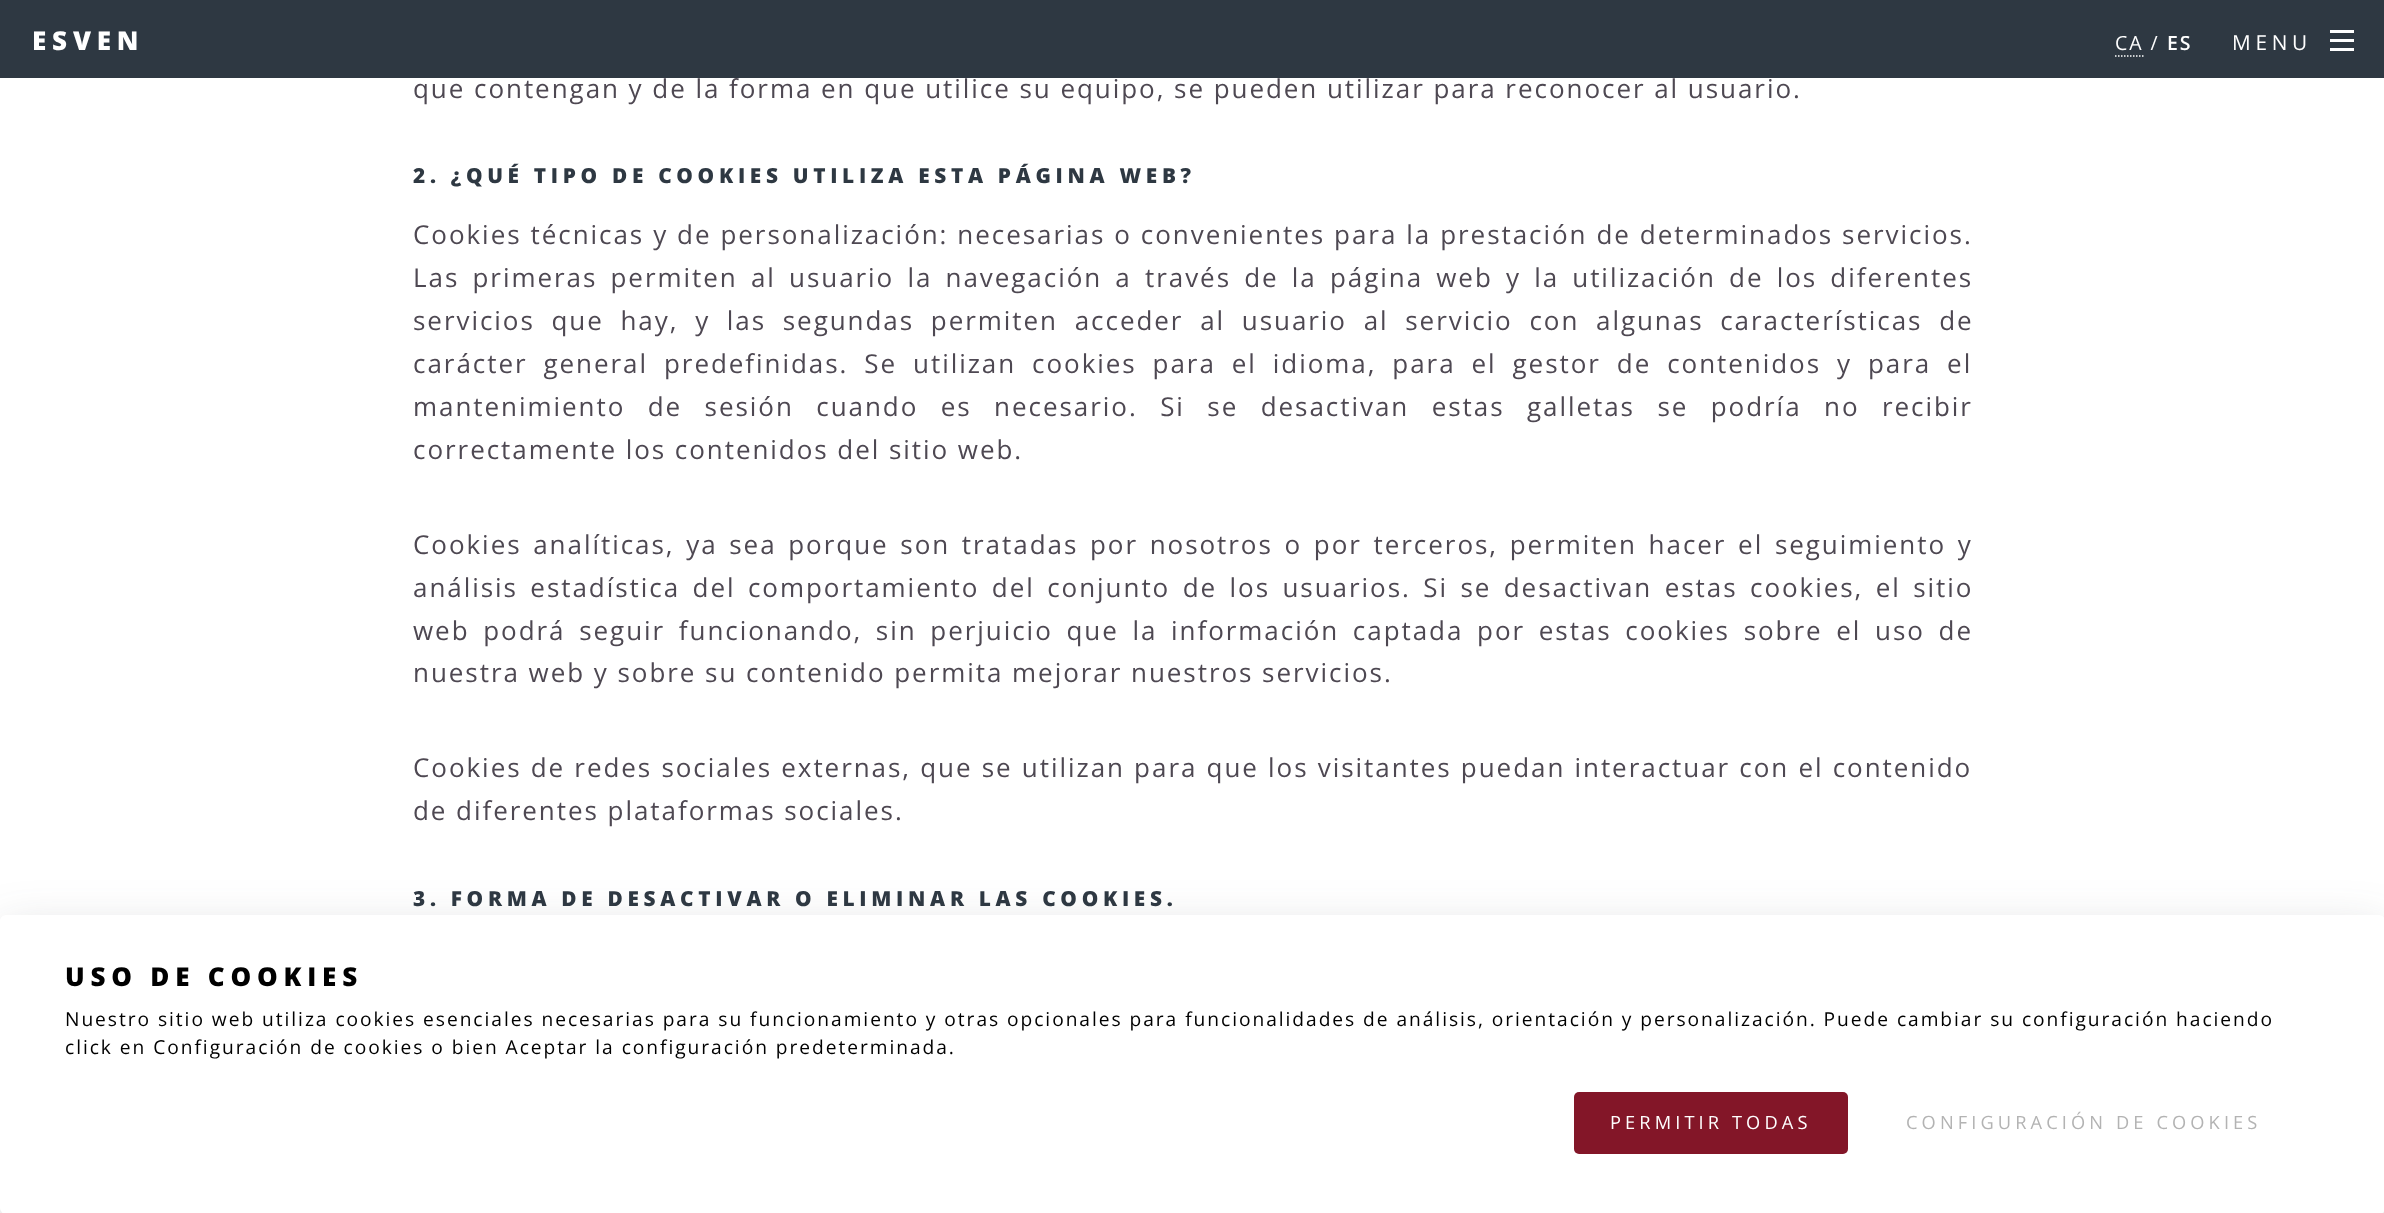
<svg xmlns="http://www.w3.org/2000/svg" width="2384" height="1213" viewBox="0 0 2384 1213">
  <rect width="100%" height="100%" fill="#fff"/>
  <path d="M0 0h2384v78H0z" fill="#2e3842"/>
  <path d="M2115 56H2143.5" fill="none" stroke="#fff" stroke-width="1.5" stroke-dasharray="1.5 1.5"/>
  <path d="M2330 30h24v3H2330z" fill="#fff"/>
  <path d="M2330 39h24v3H2330z" fill="#fff"/>
  <path d="M2330 48h24v3H2330z" fill="#fff"/>
  <rect y="932" width="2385" height="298" rx="6" fill="#393e4838" filter="blur(24.5px)"/>
  <rect y="915" width="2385" height="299" rx="6" fill="#fff"/>
  <rect x="1574" y="1092" width="274" height="62" rx="5" fill="#831628"/>
  <text x="32" y="50" font-family="Open Sans" font-size="26" font-weight="800" letter-spacing="5.8" fill="#fff">ESVEN</text>
  <text x="2115" y="50" font-family="Open Sans" font-size="19.5" letter-spacing="1.95" fill="#fff">CA /</text>
  <text x="2167" y="50" font-family="Open Sans" font-size="19.5" font-weight="600" letter-spacing="1.95" fill="#fff">ES</text>
  <text x="2232" y="50" font-family="Open Sans" font-size="20.8" letter-spacing="4.7" fill="#fff">MENU</text>
  <text x="413" y="98" font-family="Open Sans" font-size="26" letter-spacing="1.95" fill="#4e4852">que contengan y de la forma en que utilice su equipo, se pueden utilizar para reconocer al usuario.</text>
  <text x="413" y="183" font-family="Open Sans" font-size="20.8" font-weight="800" letter-spacing="4.7" fill="#2e3842">2. ¿QUÉ TIPO DE COOKIES UTILIZA ESTA PÁGINA WEB?</text>
  <g font-family="Open Sans" font-size="26" letter-spacing="1.95" fill="#4e4852">
    <text x="413" y="244" word-spacing="0.25">Cookies técnicas y de personalización: necesarias o convenientes para la prestación de determinados servicios.</text>
    <text x="413" y="287" word-spacing="4.5">Las primeras permiten al usuario la navegación a través de la página web y la utilización de los diferentes</text>
    <text x="413" y="330" word-spacing="8">servicios que hay, y las segundas permiten acceder al usuario al servicio con algunas características de</text>
    <text x="413" y="373" word-spacing="7.25">carácter general predefinidas. Se utilizan cookies para el idioma, para el gestor de contenidos y para el</text>
    <text x="413" y="416" word-spacing="13.75">mantenimiento de sesión cuando es necesario. Si se desactivan estas galletas se podría no recibir</text>
    <text x="413" y="459">correctamente los contenidos del sitio web.</text>
    <text x="413" y="554" word-spacing="3">Cookies analíticas, ya sea porque son tratadas por nosotros o por terceros, permiten hacer el seguimiento y</text>
    <text x="413" y="597" word-spacing="3.75">análisis estadística del comportamiento del conjunto de los usuarios. Si se desactivan estas cookies, el sitio</text>
    <text x="413" y="640" word-spacing="5">web podrá seguir funcionando, sin perjuicio que la información captada por estas cookies sobre el uso de</text>
    <text x="413" y="682">nuestra web y sobre su contenido permita mejorar nuestros servicios.</text>
    <text x="413" y="777" word-spacing="0.5">Cookies de redes sociales externas, que se utilizan para que los visitantes puedan interactuar con el contenido</text>
    <text x="413" y="820">de diferentes plataformas sociales.</text>
  </g>
  <text x="413" y="906" font-family="Open Sans" font-size="20.8" font-weight="800" letter-spacing="4.7" fill="#2e3842">3. FORMA DE DESACTIVAR O ELIMINAR LAS COOKIES.</text>
  <text x="65" y="986" font-family="Open Sans" font-size="26" font-weight="800" letter-spacing="5.8" fill="#000">USO DE COOKIES</text>
  <g font-family="Open Sans" font-size="19.19" letter-spacing="1.95" fill="#000">
    <text x="65" y="1026">Nuestro sitio web utiliza cookies esenciales necesarias para su funcionamiento y otras opcionales para funcionalidades de análisis, orientación y personalización. Puede cambiar su configuración haciendo</text>
    <text x="65" y="1054">click en Configuración de cookies o bien Aceptar la configuración predeterminada.</text>
  </g>
  <text x="1610" y="1129" font-family="Open Sans" font-size="18.25" letter-spacing="4.1" fill="#fff">PERMITIR TODAS</text>
  <text x="1906" y="1129" font-family="Open Sans" font-size="18.25" letter-spacing="4.1" fill="#b3b3b3">CONFIGURACIÓN DE COOKIES</text>
</svg>
